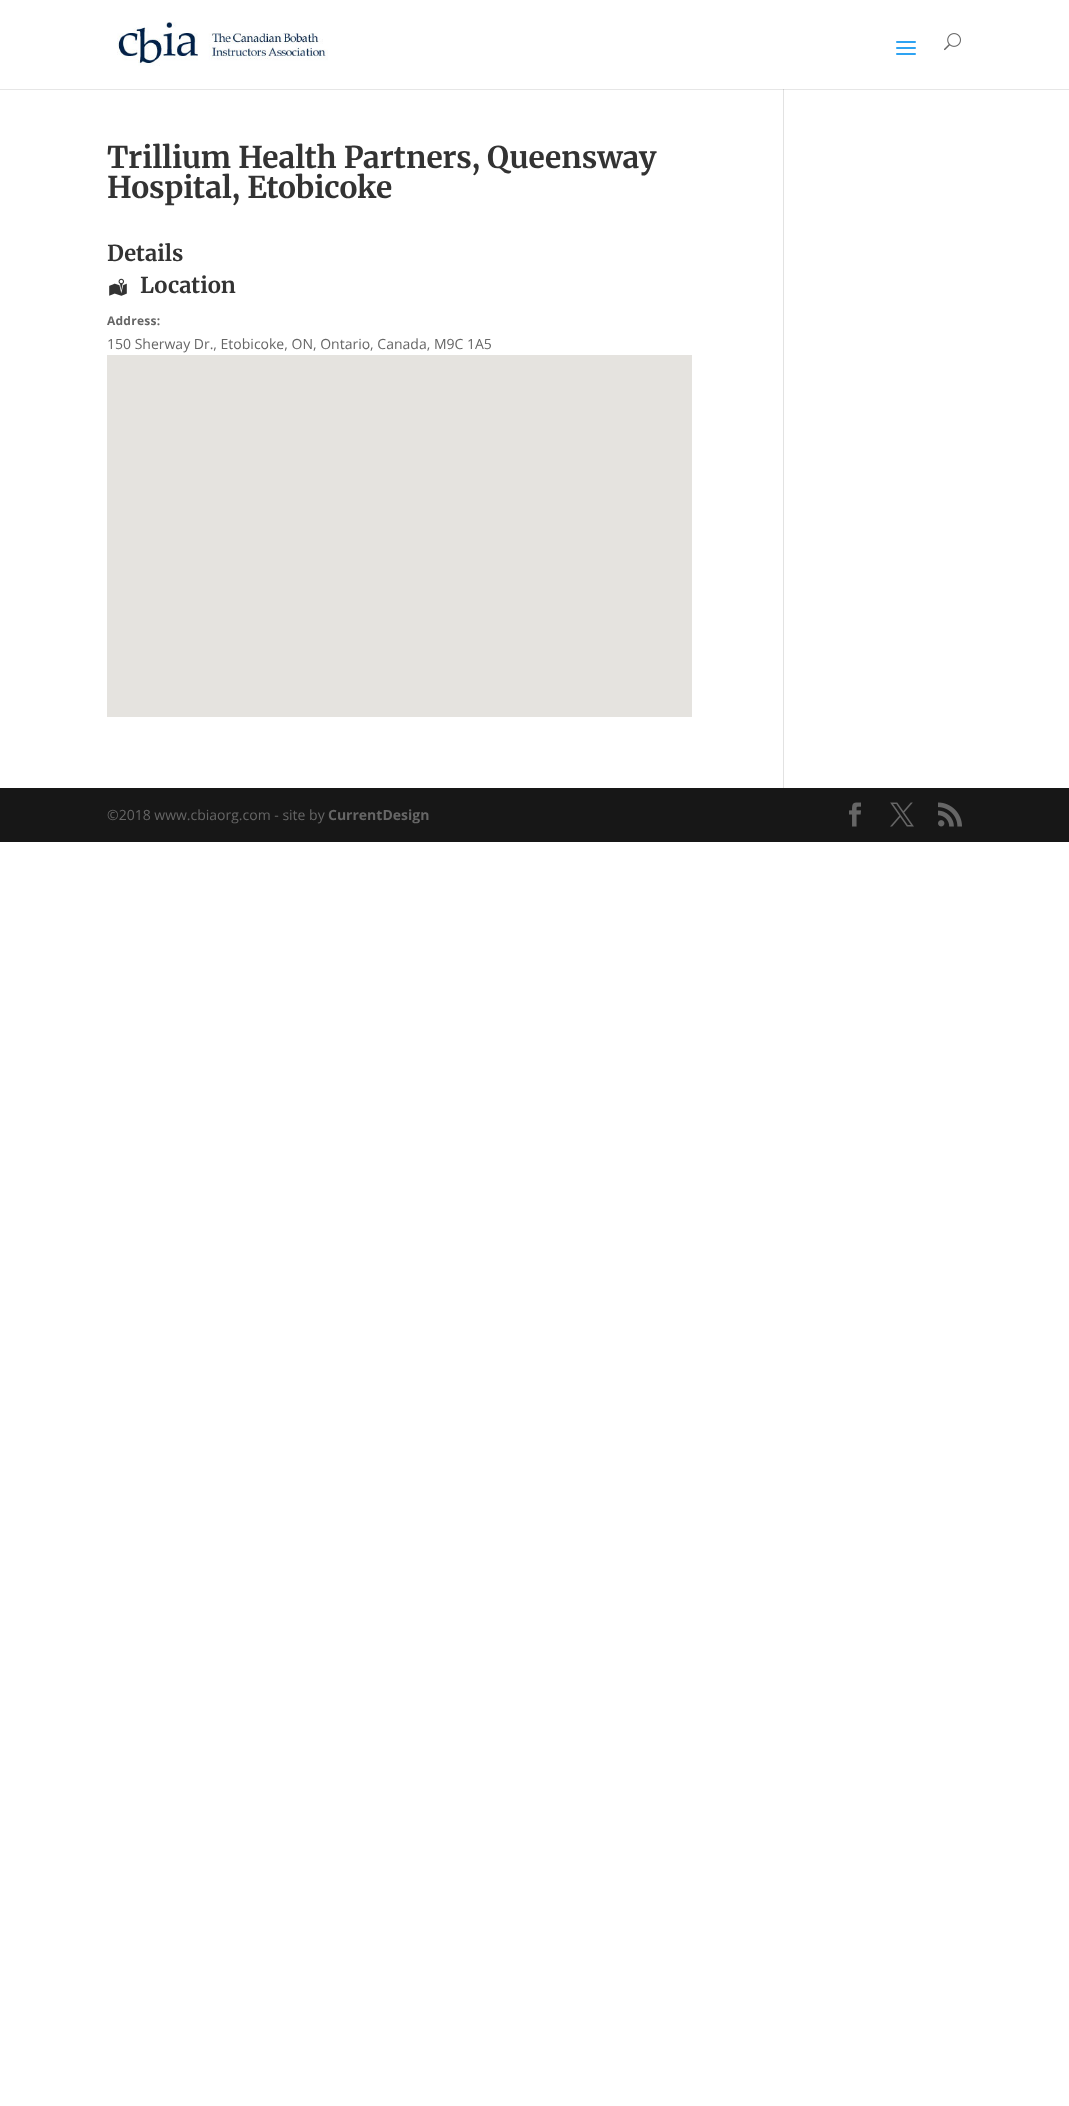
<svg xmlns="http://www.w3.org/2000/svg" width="1069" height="2106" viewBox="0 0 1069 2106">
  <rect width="100%" height="100%" fill="#fff"/>
  <path d="M0 89h1069v1H0z" fill="#e6e6e6"/>
  <path d="M783 84h1v704H783z" fill="#e2e2e2"/>
  <path d="M783 84h1v5H783z" fill="#fff"/>
  <image x="117" y="22" width="211" height="44" href="img/1.png"/>
  <image x="896" y="41" width="20" height="14" href="img/2.png"/>
  <image x="944" y="33" width="17" height="18" href="img/3.png"/>
  <image x="109" y="278" width="18" height="18" href="img/4.png"/>
  <path d="M107 355h585v362H107z" fill="#e5e3df"/>
  <path d="M783 89h1v1H783z" fill="#cbcbcb"/>
  <path d="M0 788h1069v54H0z" fill="#171717"/>
  <image x="849" y="802" width="12" height="25" href="img/5.png"/>
  <image x="890" y="802" width="24" height="25" href="img/6.png"/>
  <image x="938" y="802" width="24" height="25" href="img/7.png"/>
  <g font-family="Merriweather" font-size="30" font-weight="300" fill="#333">
    <text x="107" y="168">Trillium Health Partners, Queensway</text>
    <text x="107" y="198">Hospital, Etobicoke</text>
  </g>
  <g font-family="Merriweather" font-size="22" font-weight="300" fill="#333">
    <text x="107" y="261">Details</text>
    <text x="140" y="293">Location</text>
  </g>
  <text x="107" y="325" font-family="Open Sans" font-size="12" font-weight="bold" letter-spacing="0.25" fill="#666">Address:</text>
  <g font-family="Open Sans" font-size="14" fill="#666">
    <text x="107" y="349">150 Sherway Dr., Etobicoke, ON, Ontario, Canada, M9C 1A5</text>
    <text x="107" y="820">©2018 www.cbiaorg.com - site by</text>
  </g>
  <text x="328" y="820" font-family="Open Sans" font-size="14" font-weight="bold" fill="#666">CurrentDesign</text>
</svg>
